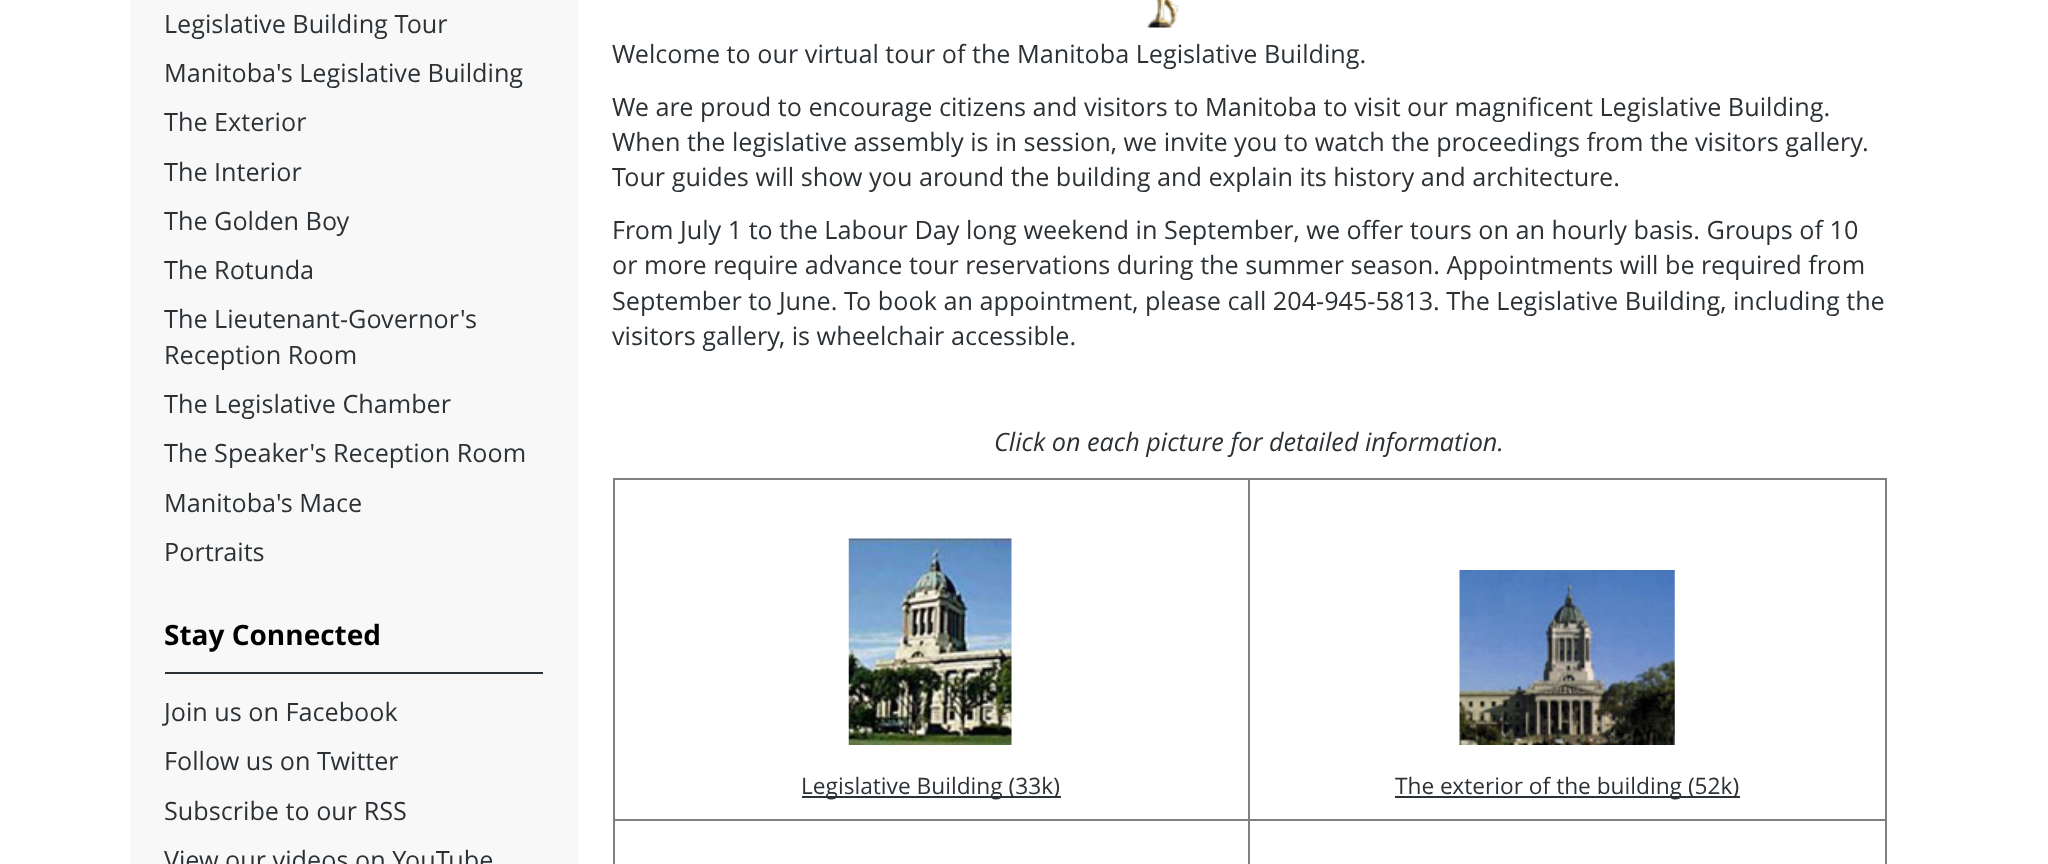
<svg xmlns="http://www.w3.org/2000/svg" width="2048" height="864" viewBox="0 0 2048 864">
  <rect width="100%" height="100%" fill="#fff"/>
  <path d="M130 0h448v864H130z" fill="#f8f8f8"/>
  <path d="M165 672h378v2H165z" fill="#2c3135"/>
  <image x="1147" y="0" width="32" height="28" href="img/1.png"/>
  <path d="M613 478h1274v2H613z" fill="#808080"/>
  <path d="M1885 478h2v386H1885z" fill="#808080"/>
  <path d="M613 478h2v386H613z" fill="#808080"/>
  <image x="848" y="538" width="164" height="207" href="img/2.png"/>
  <path d="M802 796h259v2H802z" fill="#2c3135"/>
  <path d="M1248 819h639v2H1248z" fill="#808080"/>
  <path d="M1248 819h2v45H1248z" fill="#808080"/>
  <path d="M613 819h637v2H613z" fill="#808080"/>
  <path d="M1248 478h2v343H1248z" fill="#808080"/>
  <image x="1459" y="570" width="216" height="175" href="img/3.png"/>
  <path d="M1395 796h345v2H1395z" fill="#2c3135"/>
  <g font-family="Open Sans" font-size="25.2" fill="#2c3135">
    <text x="164" y="33">Legislative Building Tour</text>
    <text x="164" y="82">Manitoba's Legislative Building</text>
    <text x="164" y="131">The Exterior</text>
    <text x="164" y="181">The Interior</text>
    <text x="164" y="230">The Golden Boy</text>
    <text x="164" y="279">The Rotunda</text>
    <text x="164" y="328">The Lieutenant-Governor's</text>
    <text x="164" y="364">Reception Room</text>
    <text x="164" y="413">The Legislative Chamber</text>
    <text x="164" y="462">The Speaker's Reception Room</text>
    <text x="164" y="512">Manitoba's Mace</text>
    <text x="164" y="561">Portraits</text>
  </g>
  <text x="164" y="645" font-family="Open Sans" font-size="28" font-weight="bold" fill="#000">Stay Connected</text>
  <g font-family="Open Sans" font-size="25.2" fill="#2c3135">
    <text x="164" y="721">Join us on Facebook</text>
    <text x="164" y="770">Follow us on Twitter</text>
    <text x="164" y="820">Subscribe to our RSS</text>
    <text x="164" y="869">View our videos on YouTube</text>
    <text x="612" y="63">Welcome to our virtual tour of the Manitoba Legislative Building.</text>
    <text x="612" y="116">We are proud to encourage citizens and visitors to Manitoba to visit our magnificent Legislative Building.</text>
    <text x="612" y="151">When the legislative assembly is in session, we invite you to watch the proceedings from the visitors gallery.</text>
    <text x="612" y="186">Tour guides will show you around the building and explain its history and architecture.</text>
    <text x="612" y="239">From July 1 to the Labour Day long weekend in September, we offer tours on an hourly basis. Groups of 10</text>
    <text x="612" y="274">or more require advance tour reservations during the summer season. Appointments will be required from</text>
    <text x="612" y="310">September to June. To book an appointment, please call 204-945-5813. The Legislative Building, including the</text>
    <text x="612" y="345">visitors gallery, is wheelchair accessible.</text>
  </g>
  <text x="994" y="451" font-family="Open Sans" font-size="25.2" font-style="italic" fill="#2c3135">Click on each picture for detailed information.</text>
  <g font-family="Open Sans" font-size="22.7" fill="#2c3135">
    <text x="801" y="794">Legislative Building (33k)</text>
    <text x="1395" y="794">The exterior of the building (52k)</text>
  </g>
</svg>
